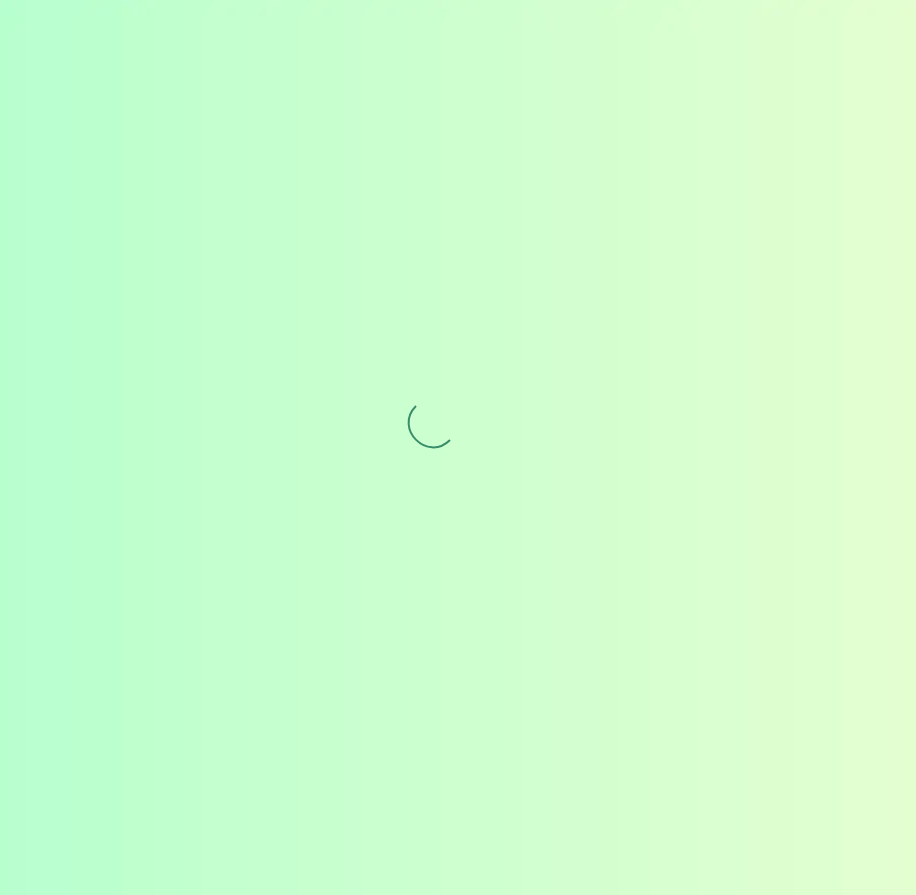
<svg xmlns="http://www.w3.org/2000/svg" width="916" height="895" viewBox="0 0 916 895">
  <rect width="100%" height="100%" fill="#fff"/>
  <image x="0" y="0" width="916" height="895" href="img/1.png"/>
  <path d="M450 440C427.5 462.5 393.5 428.5 416 406" fill="none" stroke="#3a8d69" stroke-width="2"/>
</svg>
